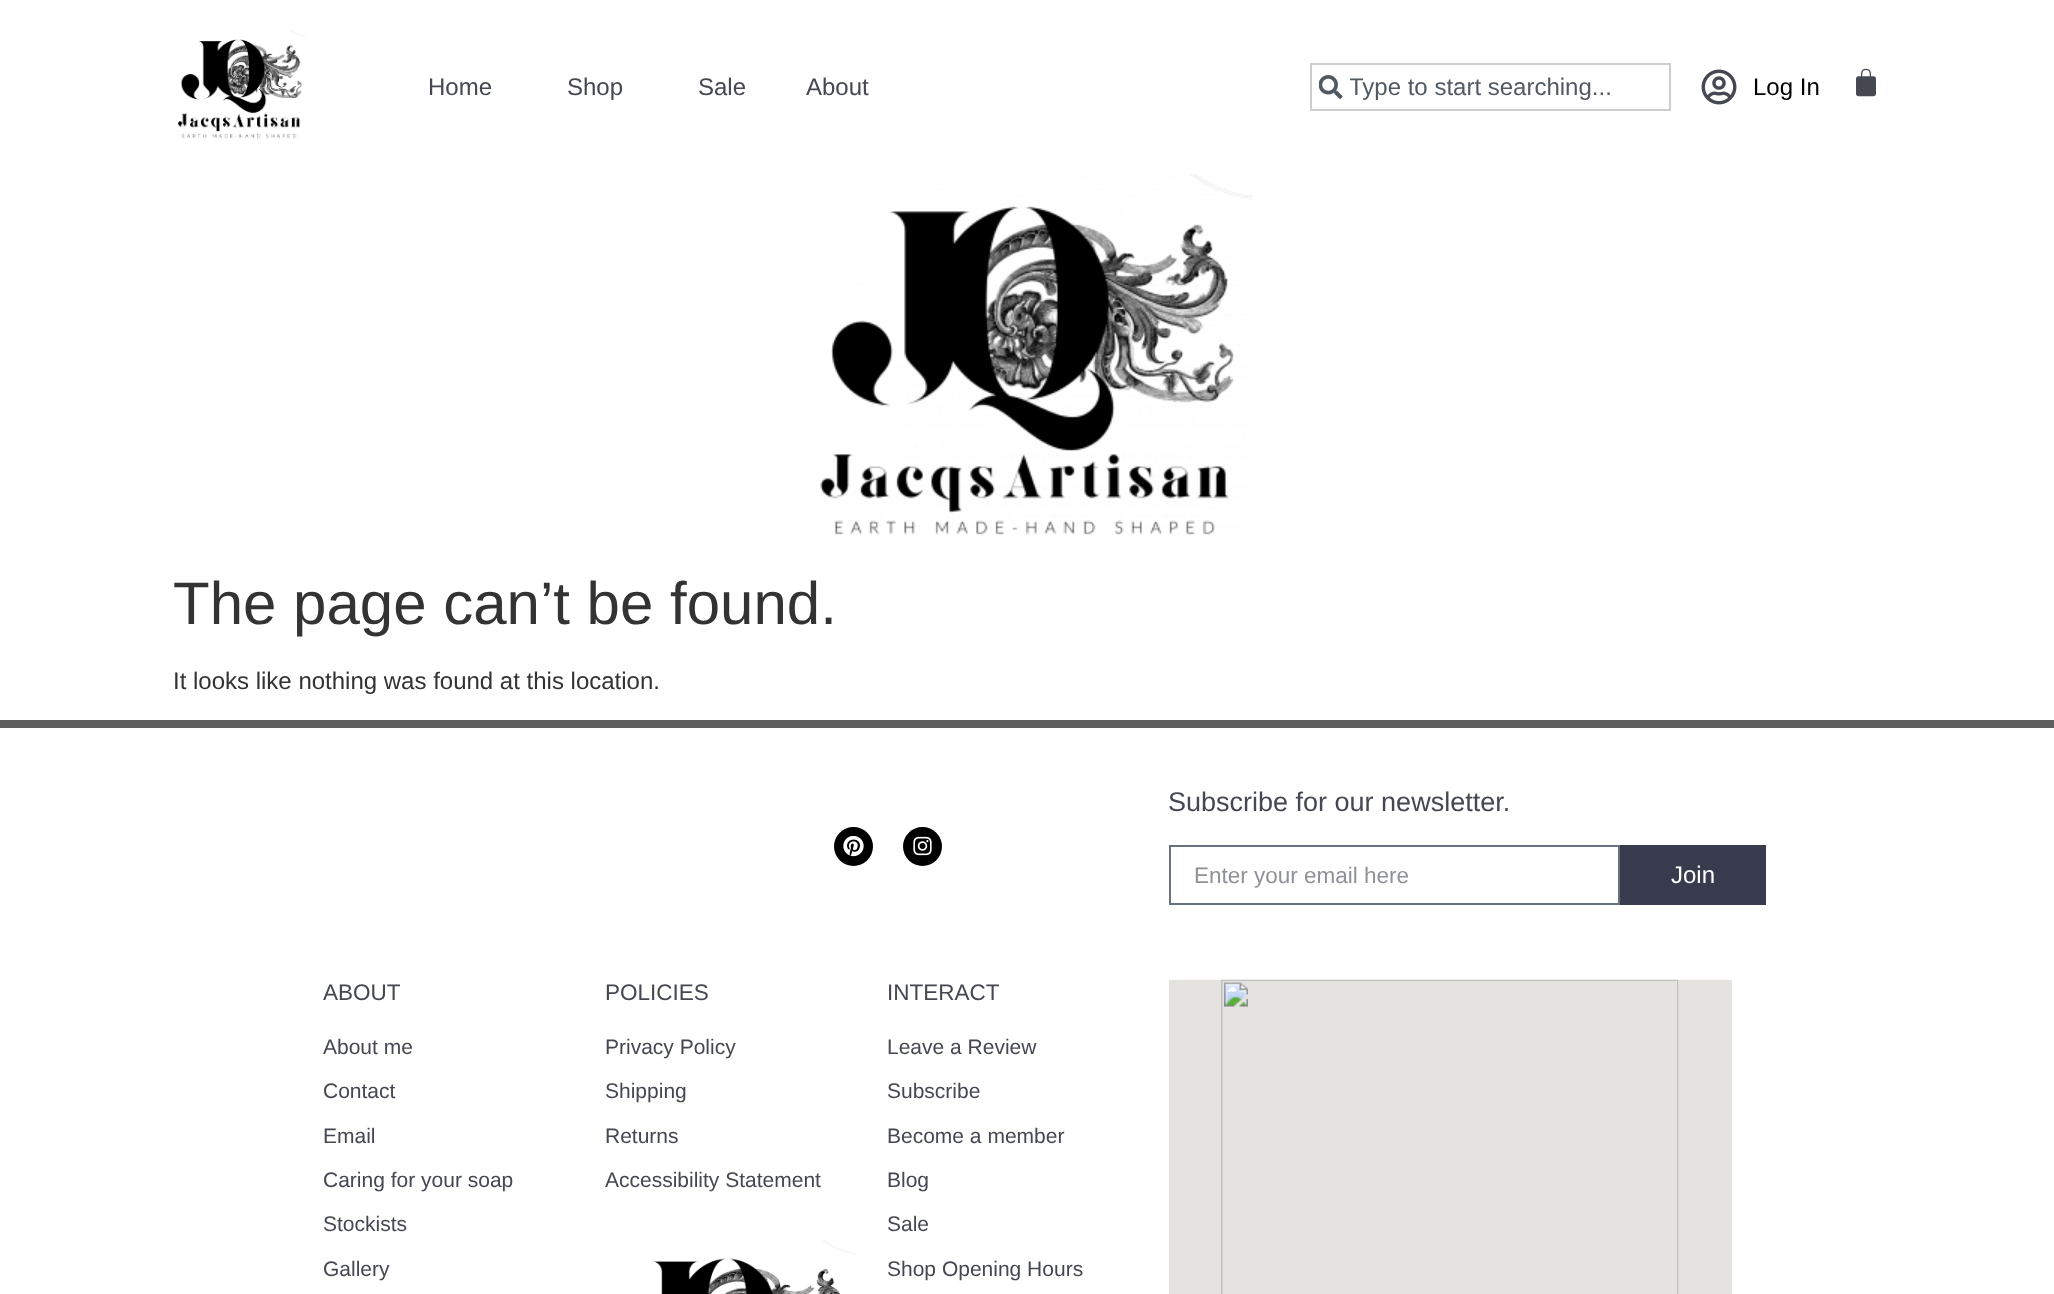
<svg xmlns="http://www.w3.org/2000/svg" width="2054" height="1294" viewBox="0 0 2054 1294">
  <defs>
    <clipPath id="clip1"><path d="M1350 74h311v27H1350z"/></clipPath>
  </defs>
  <rect width="100%" height="100%" fill="#fff"/>
  <image x="178" y="30" width="129" height="109" href="img/1.png"/>
  <path d="M1311 64h359v46H1311z" fill="none" stroke="#cdcdcd" stroke-width="2"/>
  <image x="1319" y="75" width="24" height="24" href="img/2.png"/>
  <image x="1701" y="69" width="36" height="36" href="img/3.png"/>
  <image x="1856" y="68" width="20" height="29" href="img/4.png"/>
  <image x="820" y="174" width="433" height="361" href="img/5.png"/>
  <path d="M0 720h2054v8H0z" fill="#5f5f5f"/>
  <circle cx="853.5" cy="846.5" r="19.5" fill="#000"/>
  <image x="843" y="836" width="21" height="21" href="img/6.png"/>
  <circle cx="922.5" cy="846.5" r="19.5" fill="#000"/>
  <image x="913" y="836" width="19" height="20" href="img/7.png"/>
  <path d="M1170 846h449v58H1170z" fill="none" stroke="#69727d" stroke-width="2"/>
  <path d="M1620 845h146v60H1620z" fill="#373b4d"/>
  <image x="653" y="1240" width="204" height="54" href="img/8.png"/>
  <image x="1168" y="979" width="565" height="315" href="img/9.png"/>
  <g font-family="Liberation Sans" font-size="24" fill="#454751">
    <text x="428" y="95">Home</text>
    <text x="567" y="95">Shop</text>
    <text x="698" y="95">Sale</text>
    <text x="806" y="95">About</text>
  </g>
  <g clip-path="url(#clip1)">
    <text x="1349" y="95" font-family="Liberation Sans" font-size="24" fill="#515962">Type to start searching...</text>
  </g>
  <text x="1753" y="95" font-family="Liberation Sans" font-size="24" fill="#000">Log In</text>
  <text x="173" y="624" font-family="Liberation Sans" font-size="60" fill="#333">The page can’t be found.</text>
  <text x="173" y="689" font-family="Liberation Sans" font-size="24" fill="#333">It looks like nothing was found at this location.</text>
  <text x="1168" y="811" font-family="Liberation Sans" font-size="27" fill="#454751">Subscribe for our newsletter.</text>
  <text x="1194" y="883" font-family="Liberation Sans" font-size="22.5" fill="#8f9197">Enter your email here</text>
  <text x="1671" y="883" font-family="Liberation Sans" font-size="24" fill="#fff">Join</text>
  <text x="323" y="1000" font-family="Liberation Sans" font-size="22.5" fill="#454751">ABOUT</text>
  <g font-family="Liberation Sans" font-size="21" fill="#454751">
    <text x="323" y="1054">About me</text>
    <text x="323" y="1098">Contact</text>
    <text x="323" y="1143">Email</text>
    <text x="323" y="1187">Caring for your soap</text>
    <text x="323" y="1231">Stockists</text>
    <text x="323" y="1276">Gallery</text>
  </g>
  <text x="605" y="1000" font-family="Liberation Sans" font-size="22.5" fill="#454751">POLICIES</text>
  <g font-family="Liberation Sans" font-size="21" fill="#454751">
    <text x="605" y="1054">Privacy Policy</text>
    <text x="605" y="1098">Shipping</text>
    <text x="605" y="1143">Returns</text>
    <text x="605" y="1187">Accessibility Statement</text>
  </g>
  <text x="887" y="1000" font-family="Liberation Sans" font-size="22.5" fill="#454751">INTERACT</text>
  <g font-family="Liberation Sans" font-size="21" fill="#454751">
    <text x="887" y="1054">Leave a Review</text>
    <text x="887" y="1098">Subscribe</text>
    <text x="887" y="1143">Become a member</text>
    <text x="887" y="1187">Blog</text>
    <text x="887" y="1231">Sale</text>
    <text x="887" y="1276">Shop Opening Hours</text>
  </g>
</svg>
